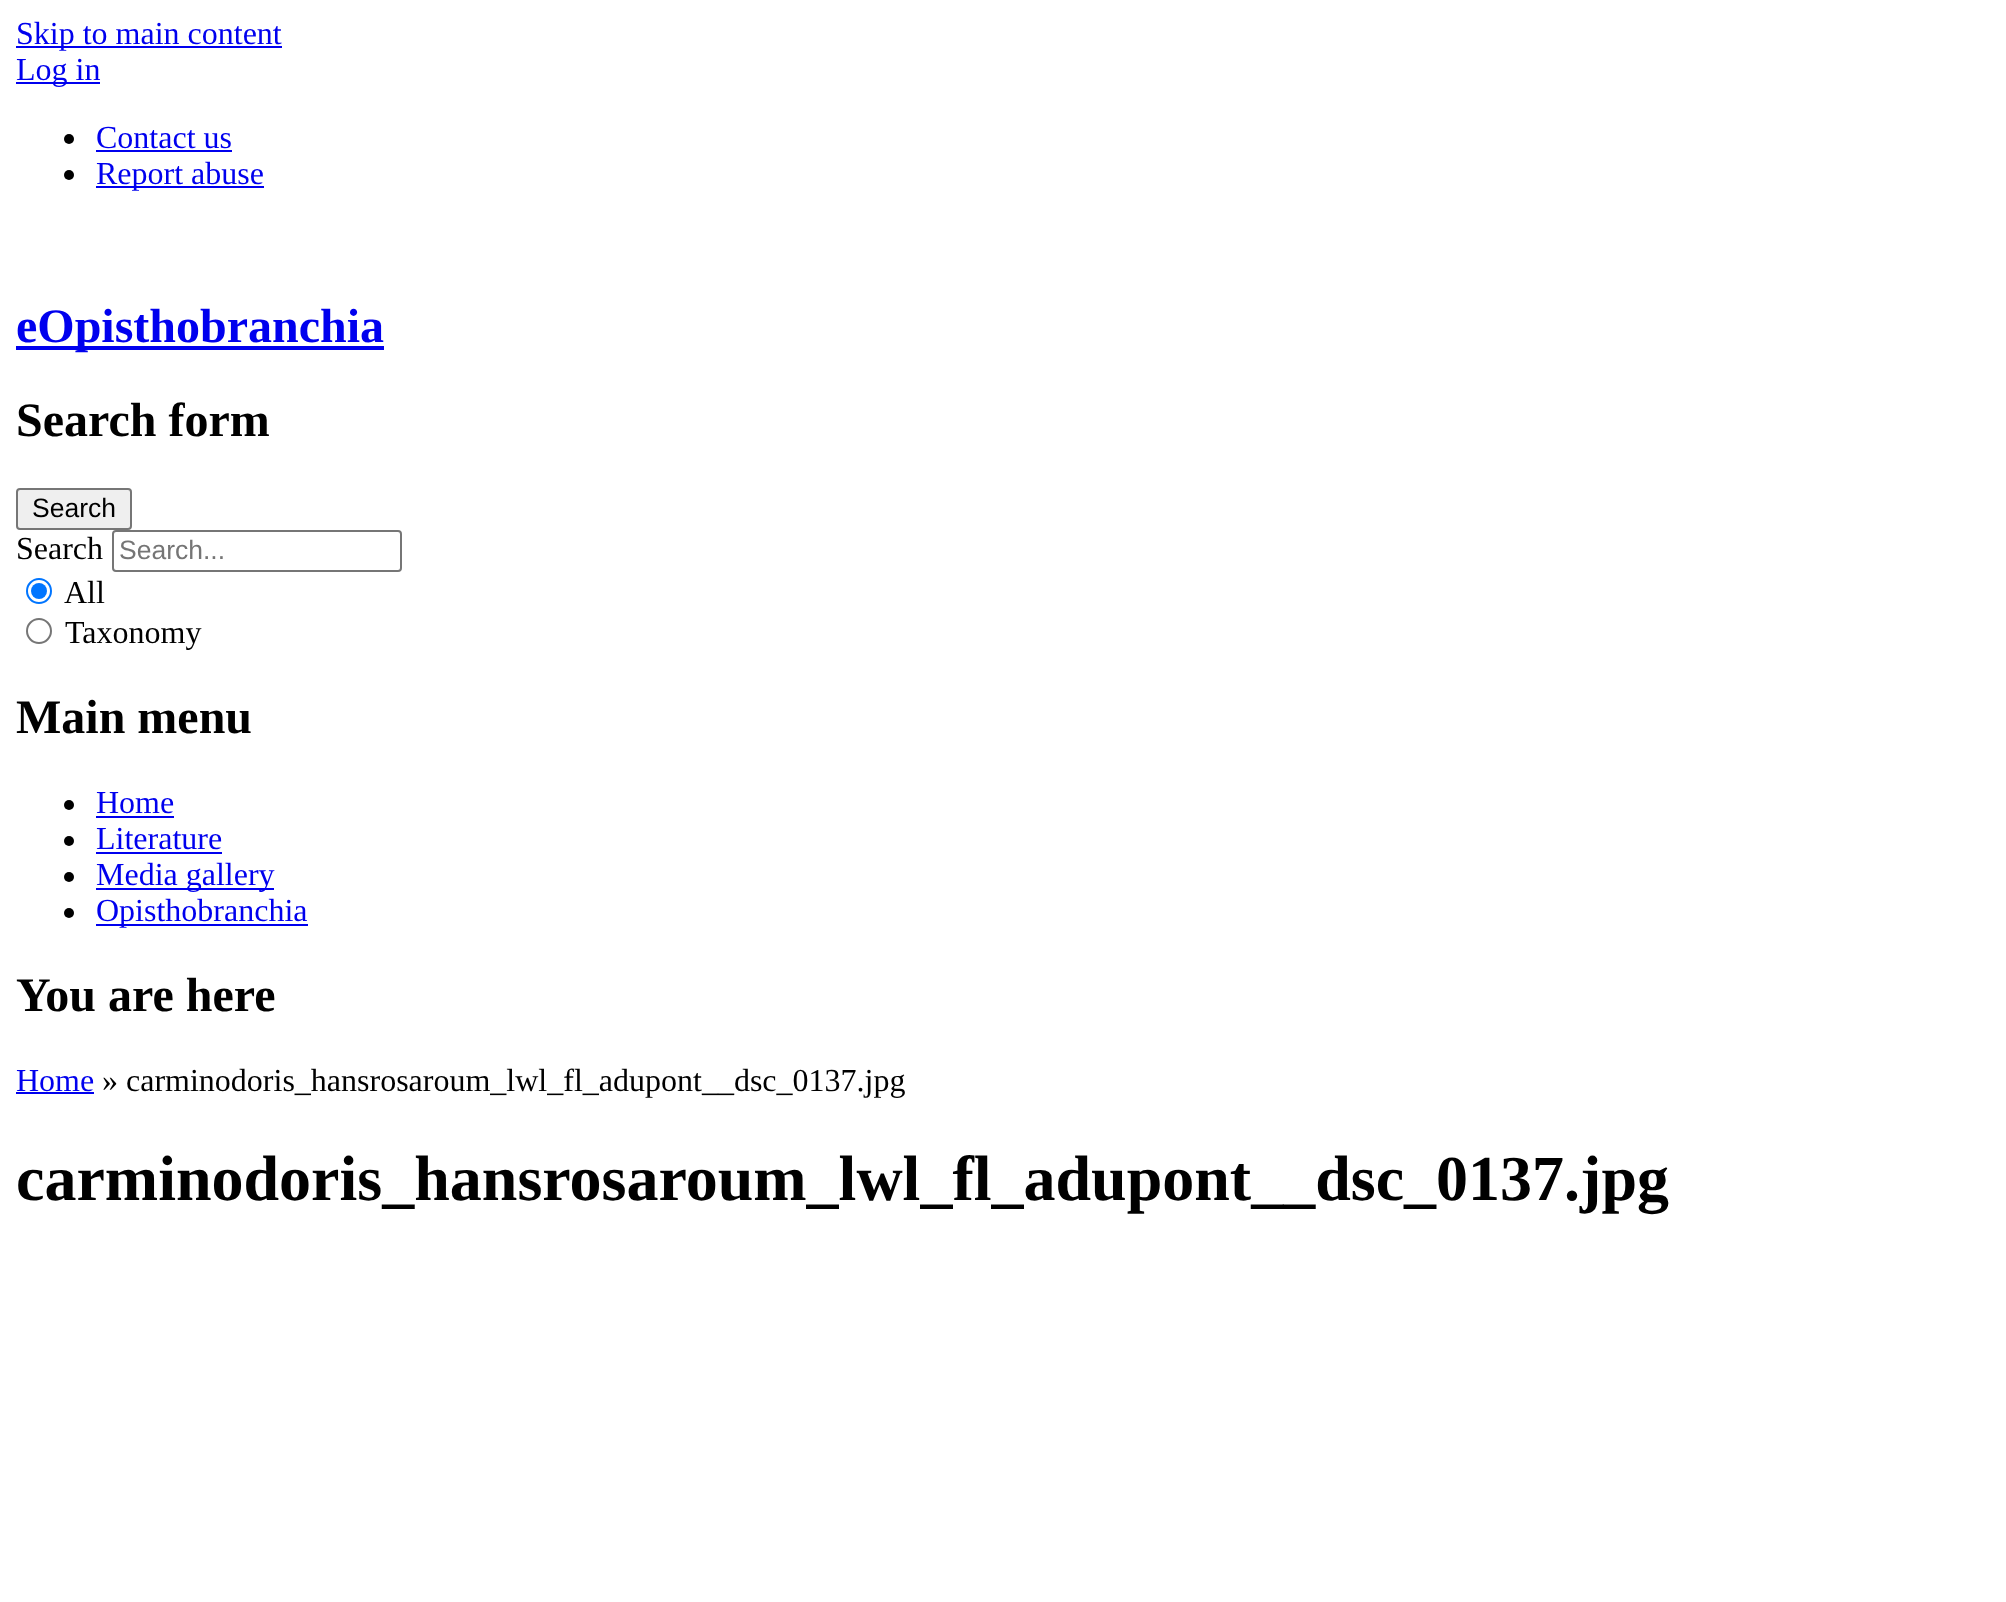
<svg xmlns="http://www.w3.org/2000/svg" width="2006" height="1602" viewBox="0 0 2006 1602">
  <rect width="100%" height="100%" fill="#fff"/>
  <path d="M16 46h266v2H16z" fill="#00e"/>
  <path d="M16 82h84v2H16z" fill="#00e"/>
  <circle cx="69" cy="139" r="5" fill="#000"/>
  <path d="M96 150h136v2H96z" fill="#00e"/>
  <circle cx="69" cy="175" r="5" fill="#000"/>
  <path d="M96 186h168v2H96z" fill="#00e"/>
  <path d="M16 346h368v4H16z" fill="#00e"/>
  <rect x="17" y="489" width="114" height="40" rx="3" fill="#efefef" stroke="#767676" stroke-width="2"/>
  <rect x="113" y="531" width="288" height="40" rx="3" fill="none" stroke="#767676" stroke-width="2"/>
  <circle cx="39" cy="591" r="12" fill="none" stroke="#0075ff" stroke-width="2"/>
  <circle cx="39" cy="591" r="8" fill="#0075ff"/>
  <circle cx="39" cy="631" r="12" fill="none" stroke="#767676" stroke-width="2"/>
  <circle cx="69" cy="805" r="5" fill="#000"/>
  <path d="M96 816h78v2H96z" fill="#00e"/>
  <circle cx="69" cy="841" r="5" fill="#000"/>
  <path d="M96 852h126v2H96z" fill="#00e"/>
  <circle cx="69" cy="877" r="5" fill="#000"/>
  <path d="M96 888h178v2H96z" fill="#00e"/>
  <circle cx="69" cy="913" r="5" fill="#000"/>
  <path d="M96 924h212v2H96z" fill="#00e"/>
  <path d="M16 1092h78v2H16z" fill="#00e"/>
  <g font-family="Liberation Serif" font-size="32" fill="#00e">
    <text x="16" y="44">Skip to main content</text>
    <text x="16" y="80">Log in</text>
    <text x="96" y="148">Contact us</text>
    <text x="96" y="184">Report abuse</text>
  </g>
  <text x="16" y="342" font-family="Liberation Serif" font-size="48" font-weight="bold" fill="#00e">eOpisthobranchia</text>
  <text x="16" y="436" font-family="Liberation Serif" font-size="48" font-weight="bold" fill="#000">Search form</text>
  <text x="32" y="517" font-family="Liberation Sans" font-size="26.5" fill="#000">Search</text>
  <text x="16" y="559" font-family="Liberation Serif" font-size="32" fill="#000">Search</text>
  <text x="119" y="559" font-family="Liberation Sans" font-size="26.5" fill="#757575">Search...</text>
  <g font-family="Liberation Serif" font-size="32" fill="#000">
    <text x="64" y="603">All</text>
    <text x="65" y="643">Taxonomy</text>
  </g>
  <text x="16" y="733" font-family="Liberation Serif" font-size="48" font-weight="bold" fill="#000">Main menu</text>
  <g font-family="Liberation Serif" font-size="32" fill="#00e">
    <text x="96" y="813">Home</text>
    <text x="96" y="849">Literature</text>
    <text x="96" y="885">Media gallery</text>
    <text x="96" y="921">Opisthobranchia</text>
  </g>
  <text x="16" y="1011" font-family="Liberation Serif" font-size="48" font-weight="bold" fill="#000">You are here</text>
  <text x="16" y="1091" font-family="Liberation Serif" font-size="32" fill="#00e">Home</text>
  <text x="102" y="1091" font-family="Liberation Serif" font-size="32" fill="#000">» carminodoris_hansrosaroum_lwl_fl_adupont__dsc_0137.jpg</text>
  <text x="16" y="1200" font-family="Liberation Serif" font-size="64" font-weight="bold" fill="#000">carminodoris_hansrosaroum_lwl_fl_adupont__dsc_0137.jpg</text>
</svg>
